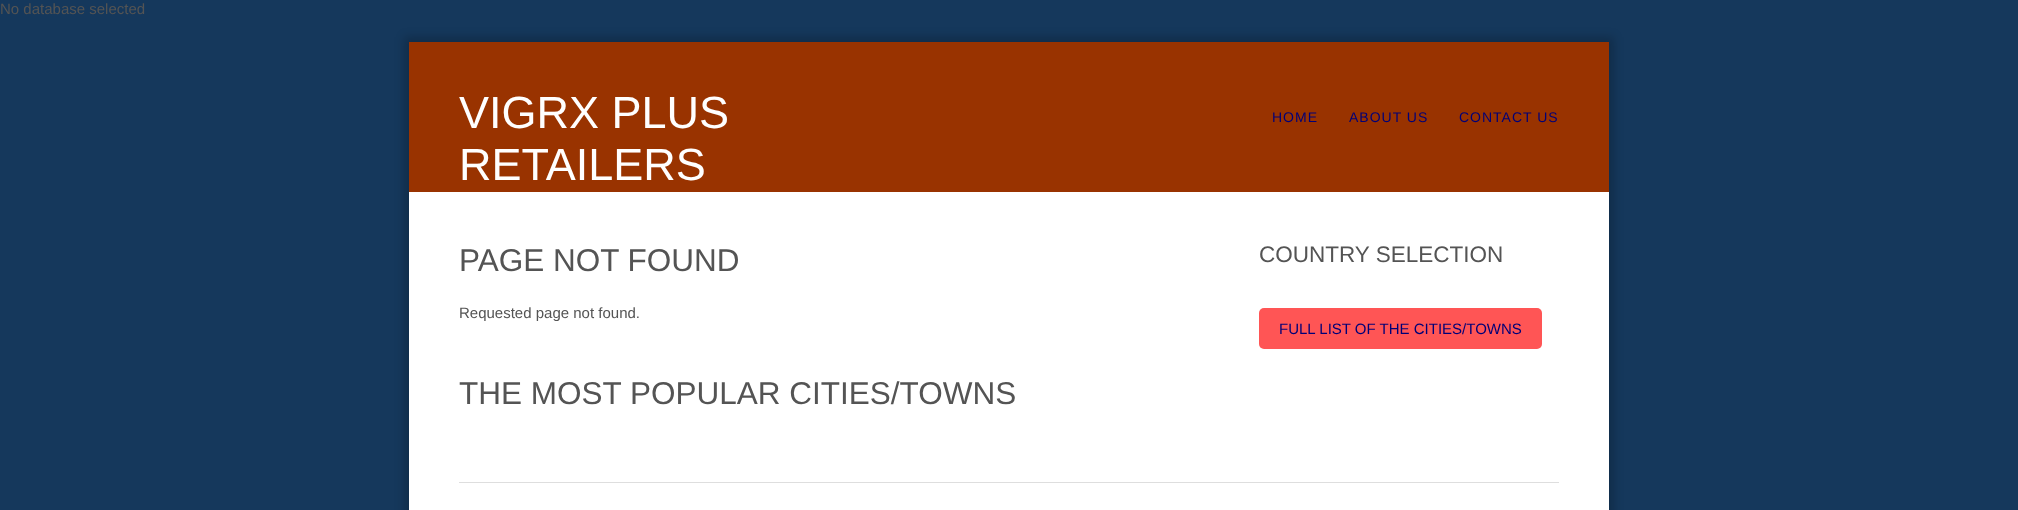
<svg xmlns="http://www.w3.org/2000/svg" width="2018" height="510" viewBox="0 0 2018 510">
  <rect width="100%" height="100%" fill="#15385c"/>
  <path d="M404 37h1210v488H404z" fill="#00000033" filter="blur(5px)"/>
  <path d="M409 192h1200v318H409z" fill="#fff"/>
  <path d="M409 42h1200v150H409z" fill="#930"/>
  <path d="M459 482h1100v1H459z" fill="#dedede"/>
  <rect x="1259" y="308" width="283" height="41" rx="5" fill="#f55"/>
  <text x="0" y="14" font-family="Liberation Sans" font-size="15" fill="#545454">No database selected</text>
  <g font-family="Liberation Sans" font-size="45" fill="#fff">
    <text x="459" y="128">VIGRX PLUS</text>
    <text x="459" y="180">RETAILERS</text>
  </g>
  <g font-family="Liberation Sans" font-size="14" letter-spacing="1" fill="#007">
    <text x="1272" y="122">HOME</text>
    <text x="1349" y="122">ABOUT US</text>
    <text x="1459" y="122">CONTACT US</text>
  </g>
  <text x="459" y="271" font-family="Liberation Sans" font-size="31.5" fill="#545454">PAGE NOT FOUND</text>
  <text x="459" y="318" font-family="Liberation Sans" font-size="15" fill="#545454">Requested page not found.</text>
  <text x="459" y="404" font-family="Liberation Sans" font-size="31.5" fill="#545454">THE MOST POPULAR CITIES/TOWNS</text>
  <text x="1259" y="262" font-family="Liberation Sans" font-size="22.5" fill="#545454">COUNTRY SELECTION</text>
  <text x="1279" y="334" font-family="Liberation Sans" font-size="15" fill="#007">FULL LIST OF THE CITIES/TOWNS</text>
</svg>
